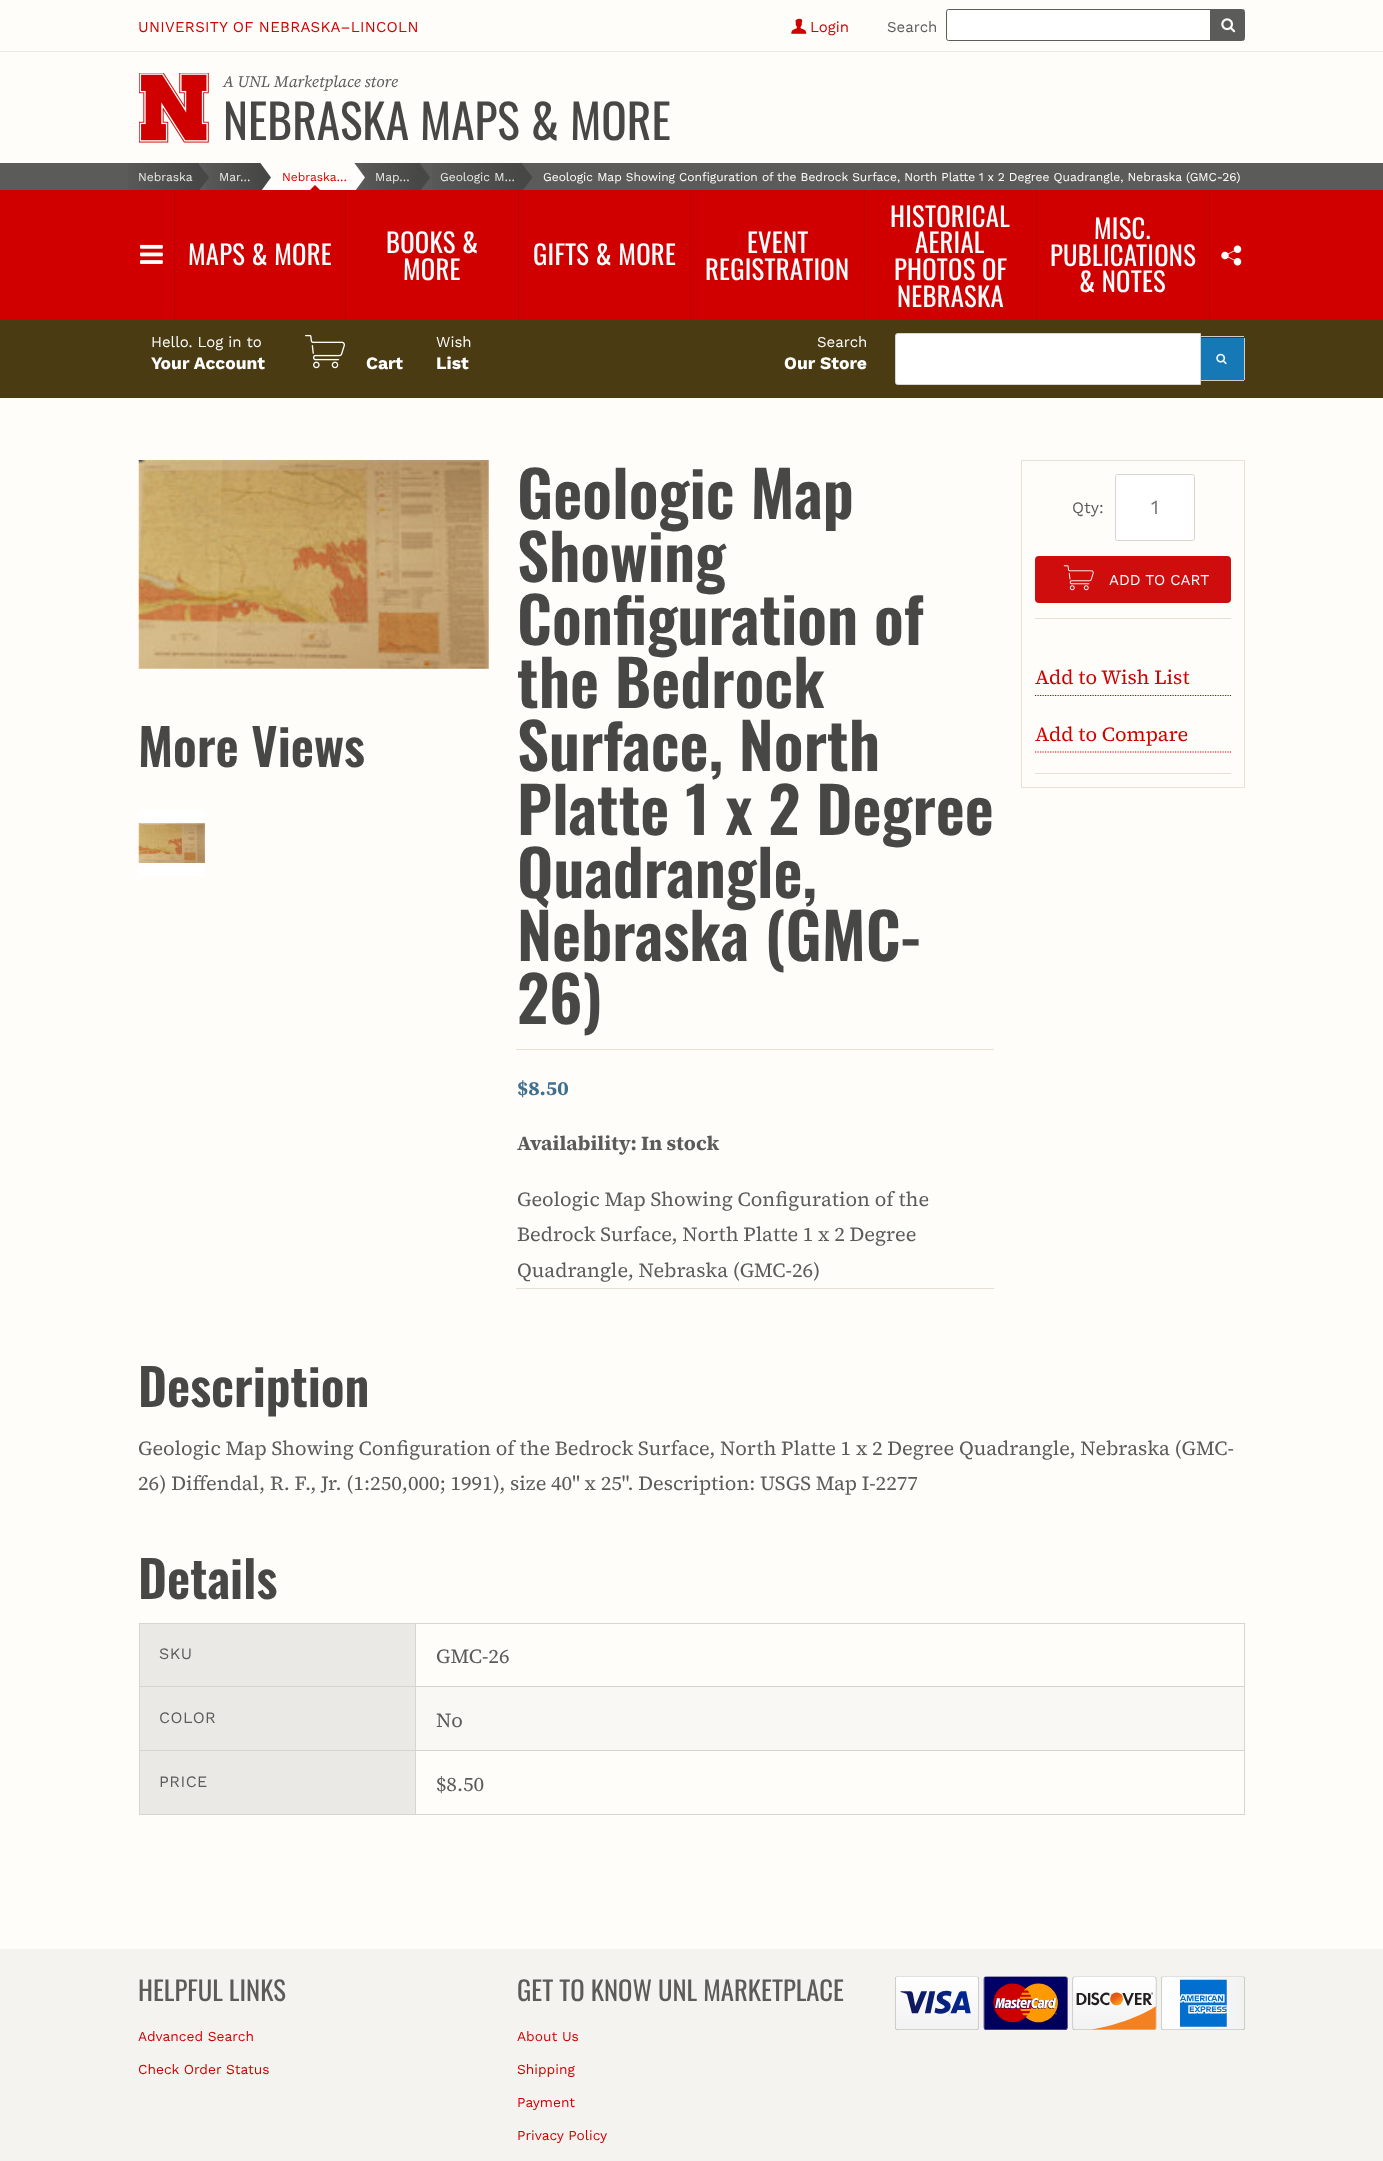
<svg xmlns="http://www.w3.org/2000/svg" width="1383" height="2161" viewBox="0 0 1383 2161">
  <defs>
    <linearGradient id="g1" gradientUnits="userSpaceOnUse" x1="118" y1="177" x2="198" y2="177"><stop offset="0" stop-color="#5b5b5a"/><stop offset="1" stop-color="#474746"/></linearGradient>
    <linearGradient id="g2" gradientUnits="userSpaceOnUse" x1="198" y1="177" x2="260" y2="177"><stop offset="0" stop-color="#5b5b5a"/><stop offset="1" stop-color="#474746"/></linearGradient>
    <linearGradient id="g3" gradientUnits="userSpaceOnUse" x1="354" y1="177" x2="419" y2="177"><stop offset="0" stop-color="#5b5b5a"/><stop offset="1" stop-color="#474746"/></linearGradient>
    <linearGradient id="g4" gradientUnits="userSpaceOnUse" x1="419" y1="177" x2="521" y2="177"><stop offset="0" stop-color="#5b5b5a"/><stop offset="1" stop-color="#474746"/></linearGradient>
  </defs>
  <rect width="100%" height="100%" fill="#fefdfa"/>
  <image x="791" y="18" width="16" height="16" href="img/1.png"/>
  <path d="M949 10H1210V40H949C948 40 948 39 948 39V11C948 11 948 10 949 10Z" fill="#fff"/>
  <rect x="946.5" y="9.5" width="298" height="31" rx="2" fill="none" stroke="#5b5b5a"/>
  <path d="M1210 10h34v30H1210z" fill="#5b5b5a"/>
  <image x="1221" y="18" width="15" height="15" href="img/2.png"/>
  <path d="M0 51h1383v1H0z" fill="#eae9e6"/>
  <image x="139" y="73" width="70" height="70" href="img/3.png"/>
  <path d="M0 163h1383v27H0z" fill="#5b5b5a"/>
  <path d="M128 163h70v27H128z" fill="url(#g1)"/>
  <path d="M206 163h54v27H206z" fill="url(#g2)"/>
  <path d="M197.5 192.5V162.5L209 177.5Z" fill="#474746"/>
  <path d="M260 163h94v27H260z" fill="#fefdfa"/>
  <path d="M260 192.5V162.5L271 177.5Z" fill="#474746"/>
  <path d="M321 191H309L315 185Z" fill="#d00000"/>
  <path d="M362 163h57v27H362z" fill="url(#g3)"/>
  <path d="M354 192.5V162.5L365 177.5Z" fill="#fefdfa"/>
  <path d="M419 192.5V162.5L430 177.5Z" fill="#474746"/>
  <path d="M432 163h89v27H432z" fill="url(#g4)"/>
  <path d="M521 192.5V162.5L532.5 177.5Z" fill="#474746"/>
  <path d="M0 190h1383v130H0z" fill="#d00000"/>
  <path d="M345 190h1v129H345z" fill="#b00"/>
  <path d="M174 190h1v129H174z" fill="#b00"/>
  <path d="M518 190h1v130H518z" fill="#b00"/>
  <path d="M690 190h1v129H690z" fill="#b00"/>
  <path d="M864 190h1v130H864z" fill="#b00"/>
  <path d="M1036 190h1v130H1036z" fill="#b00"/>
  <path d="M1209 190h1v129H1209z" fill="#b00"/>
  <image x="140" y="244" width="23" height="20" href="img/4.png"/>
  <image x="1221" y="245" width="21" height="21" href="img/5.png"/>
  <path d="M0 320h1383v78H0z" fill="#4a3b13"/>
  <image x="305" y="334" width="40" height="35" href="img/6.png"/>
  <path d="M897.5 333.5H1200.5V384.5H897.5C896.5 384.5 895.5 383.5 895.5 382.5V335.5C895.5 334.5 896.5 333.5 897.5 333.5Z" fill="#fff" stroke="#d5d5d2"/>
  <path d="M1201 338H1243C1243.5 338 1244 338.5 1244 339V379C1244 379.5 1243.5 380 1243 380H1201Z" fill="#1679b5"/>
  <path d="M1201 336h43v1H1201z" fill="#cecdc8"/>
  <path d="M1244 338h1v42H1244z" fill="#cecdc8"/>
  <path d="M1201 380h43v1H1201z" fill="#cecdc8"/>
  <image x="1216" y="353" width="11" height="12" href="img/7.png"/>
  <image x="138" y="460" width="351" height="209" href="img/8.png"/>
  <image x="138" y="810" width="67" height="66" href="img/9.png"/>
  <path d="M516 1049h478v1H516z" fill="#e5e1d5"/>
  <path d="M516 1288h478v1H516z" fill="#e5e1d5"/>
  <path d="M1021.5 460.5h223v327H1021.5z" fill="none" stroke="#e5e1d5"/>
  <rect x="1115.5" y="474.5" width="79" height="66" rx="2" fill="#fff" stroke="#d5d5d2"/>
  <rect x="1035" y="556" width="196" height="47" rx="4" fill="#cf0d0d"/>
  <image x="1063" y="565" width="31" height="26" href="img/10.png"/>
  <path d="M1035 618h196v1H1035z" fill="#e5e1d5"/>
  <path d="M1035 773h196v1H1035z" fill="#e5e1d5"/>
  <path d="M1035 695.5H1231" fill="none" stroke="#d00000" stroke-width="1.2" stroke-dasharray="1.25 1.25"/>
  <path d="M1035 752H1231" fill="none" stroke="#d00000" stroke-width="1.2" stroke-dasharray="1.25 1.25"/>
  <path d="M139 1623h1106v1H139z" fill="#d5d5d2"/>
  <path d="M1244 1623h1v192H1244z" fill="#d5d5d2"/>
  <path d="M139 1814h1106v1H139z" fill="#d5d5d2"/>
  <path d="M139 1623h1v192H139z" fill="#d5d5d2"/>
  <path d="M140 1624h275v62H140z" fill="#eae9e6"/>
  <path d="M416 1687h828v63H416z" fill="#f9f8f5"/>
  <path d="M140 1687h275v63H140z" fill="#eae9e6"/>
  <path d="M139 1686h1106v1H139z" fill="#d5d5d2"/>
  <path d="M139 1750h1106v1H139z" fill="#d5d5d2"/>
  <path d="M415 1750h1v65H415z" fill="#d5d5d2"/>
  <path d="M415 1623h1v128H415z" fill="#d5d5d2"/>
  <path d="M140 1751h275v63H140z" fill="#eae9e6"/>
  <path d="M0 1949h1383v212H0z" fill="#f4f3f0"/>
  <image x="895" y="1976" width="350" height="54" href="img/11.png"/>
  <text x="138" y="32" font-family="Work Sans" font-size="15" letter-spacing="0.3" fill="#d00000">UNIVERSITY OF NEBRASKA–LINCOLN</text>
  <text x="810" y="32" font-family="Work Sans" font-size="15" fill="#d00000">Login</text>
  <text x="887" y="32" font-family="Work Sans" font-size="15" fill="#5b5b5a">Search</text>
  <text x="223" y="87" font-family="'Source Serif 4'" font-size="16" font-style="italic" fill="#5b5b5a">A UNL Marketplace store</text>
  <text x="223" y="140" font-family="Oswald" font-size="47.4" fill="#474746">NEBRASKA MAPS &amp; MORE</text>
  <g font-family="Work Sans" font-size="12.03" fill="#eae9e6">
    <text x="138" y="181">Nebraska</text>
    <text x="219" y="181">Mar…</text>
  </g>
  <text x="282" y="181" font-family="Work Sans" font-size="12.03" fill="#d00000">Nebraska…</text>
  <g font-family="Work Sans" font-size="12.03" fill="#eae9e6">
    <text x="375" y="181">Map…</text>
    <text x="440" y="181">Geologic M…</text>
  </g>
  <text x="543" y="181" font-family="Work Sans" font-size="12.03" fill="#fff">Geologic Map Showing Configuration of the Bedrock Surface, North Platte 1 x 2 Degree Quadrangle, Nebraska (GMC-26)</text>
  <g font-family="Oswald" font-size="26.7" letter-spacing="0.25" fill="#fff">
    <text x="188" y="265">MAPS &amp; MORE</text>
    <text x="386" y="253">BOOKS &amp;</text>
    <text x="403" y="280">MORE</text>
    <text x="533" y="265">GIFTS &amp; MORE</text>
    <text x="747" y="253">EVENT</text>
    <text x="705" y="280">REGISTRATION</text>
    <text x="890" y="227">HISTORICAL</text>
    <text x="915" y="253">AERIAL</text>
    <text x="894" y="280">PHOTOS OF</text>
    <text x="897" y="307">NEBRASKA</text>
    <text x="1094" y="239">MISC.</text>
    <text x="1050" y="266">PUBLICATIONS</text>
    <text x="1079" y="292">&amp; NOTES</text>
  </g>
  <text x="151" y="347" font-family="Work Sans" font-size="15" fill="#fff">Hello. Log in to</text>
  <g font-family="Work Sans" font-size="17.5" font-weight="bold" fill="#fff">
    <text x="151" y="369">Your Account</text>
    <text x="366" y="369">Cart</text>
  </g>
  <text x="436" y="347" font-family="Work Sans" font-size="15" fill="#fff">Wish</text>
  <text x="436" y="369" font-family="Work Sans" font-size="17.5" font-weight="bold" fill="#fff">List</text>
  <text x="817" y="347" font-family="Work Sans" font-size="15" fill="#fff">Search</text>
  <text x="784" y="369" font-family="Work Sans" font-size="17.5" font-weight="bold" fill="#fff">Our Store</text>
  <text x="138" y="767" font-family="Oswald" font-size="50.5" font-weight="600" fill="#474746">More Views</text>
  <g font-family="Oswald" font-size="63.25" font-weight="600" fill="#474746">
    <text x="517" y="519">Geologic Map</text>
    <text x="517" y="582">Showing</text>
    <text x="517" y="645">Configuration of</text>
    <text x="517" y="708">the Bedrock</text>
    <text x="517" y="771">Surface, North</text>
    <text x="517" y="835">Platte 1 x 2 Degree</text>
    <text x="517" y="898">Quadrangle,</text>
    <text x="517" y="961">Nebraska (GMC-</text>
    <text x="517" y="1024">26)</text>
  </g>
  <text x="517" y="1095" font-family="'Source Serif 4'" font-size="20" font-weight="bold" fill="#41708d">$8.50</text>
  <g font-family="'Source Serif 4'" font-size="20" font-weight="bold" fill="#5b5b5a">
    <text x="517" y="1150">Availability:</text>
    <text x="641" y="1150">In stock</text>
  </g>
  <g font-family="'Source Serif 4'" font-size="20" fill="#5b5b5a">
    <text x="517" y="1206">Geologic Map Showing Configuration of the</text>
    <text x="517" y="1241">Bedrock Surface, North Platte 1 x 2 Degree</text>
    <text x="517" y="1277">Quadrangle, Nebraska (GMC-26)</text>
  </g>
  <text x="1072" y="513" font-family="Work Sans" font-size="16" fill="#5b5b5a">Qty:</text>
  <text x="1151" y="514" font-family="Work Sans" font-size="20" fill="#757575">1</text>
  <text x="1109" y="585" font-family="Work Sans" font-size="15" fill="#fff">ADD TO CART</text>
  <g font-family="'Source Serif 4'" font-size="20" fill="#d00000">
    <text x="1035" y="684">Add to Wish List</text>
    <text x="1035" y="741">Add to Compare</text>
  </g>
  <text x="138" y="1407" font-family="Oswald" font-size="50.5" font-weight="600" fill="#474746">Description</text>
  <g font-family="'Source Serif 4'" font-size="20" fill="#5b5b5a">
    <text x="138" y="1455">Geologic Map Showing Configuration of the Bedrock Surface, North Platte 1 x 2 Degree Quadrangle, Nebraska (GMC-</text>
    <text x="138" y="1490">26) Diffendal, R. F., Jr. (1:250,000; 1991), size 40" x 25". Description: USGS Map I-2277</text>
  </g>
  <text x="138" y="1599" font-family="Oswald" font-size="50.5" font-weight="600" fill="#474746">Details</text>
  <text x="159" y="1659" font-family="Work Sans" font-size="16" letter-spacing="0.5" fill="#5b5b5a">SKU</text>
  <text x="436" y="1663" font-family="'Source Serif 4'" font-size="20" fill="#5b5b5a">GMC-26</text>
  <text x="159" y="1723" font-family="Work Sans" font-size="16" letter-spacing="0.5" fill="#5b5b5a">COLOR</text>
  <text x="436" y="1727" font-family="'Source Serif 4'" font-size="20" fill="#5b5b5a">No</text>
  <text x="159" y="1787" font-family="Work Sans" font-size="16" letter-spacing="0.5" fill="#5b5b5a">PRICE</text>
  <text x="436" y="1791" font-family="'Source Serif 4'" font-size="20" fill="#5b5b5a">$8.50</text>
  <text x="138" y="2001" font-family="Oswald" font-size="26.7" fill="#5b5b5a">HELPFUL LINKS</text>
  <g font-family="Work Sans" font-size="13.75" fill="#d00000">
    <text x="138" y="2041">Advanced Search</text>
    <text x="138" y="2074">Check Order Status</text>
  </g>
  <text x="517" y="2001" font-family="Oswald" font-size="26.7" fill="#5b5b5a">GET TO KNOW UNL MARKETPLACE</text>
  <g font-family="Work Sans" font-size="13.75" fill="#d00000">
    <text x="517" y="2041">About Us</text>
    <text x="517" y="2074">Shipping</text>
    <text x="517" y="2107">Payment</text>
    <text x="517" y="2140">Privacy Policy</text>
  </g>
</svg>
